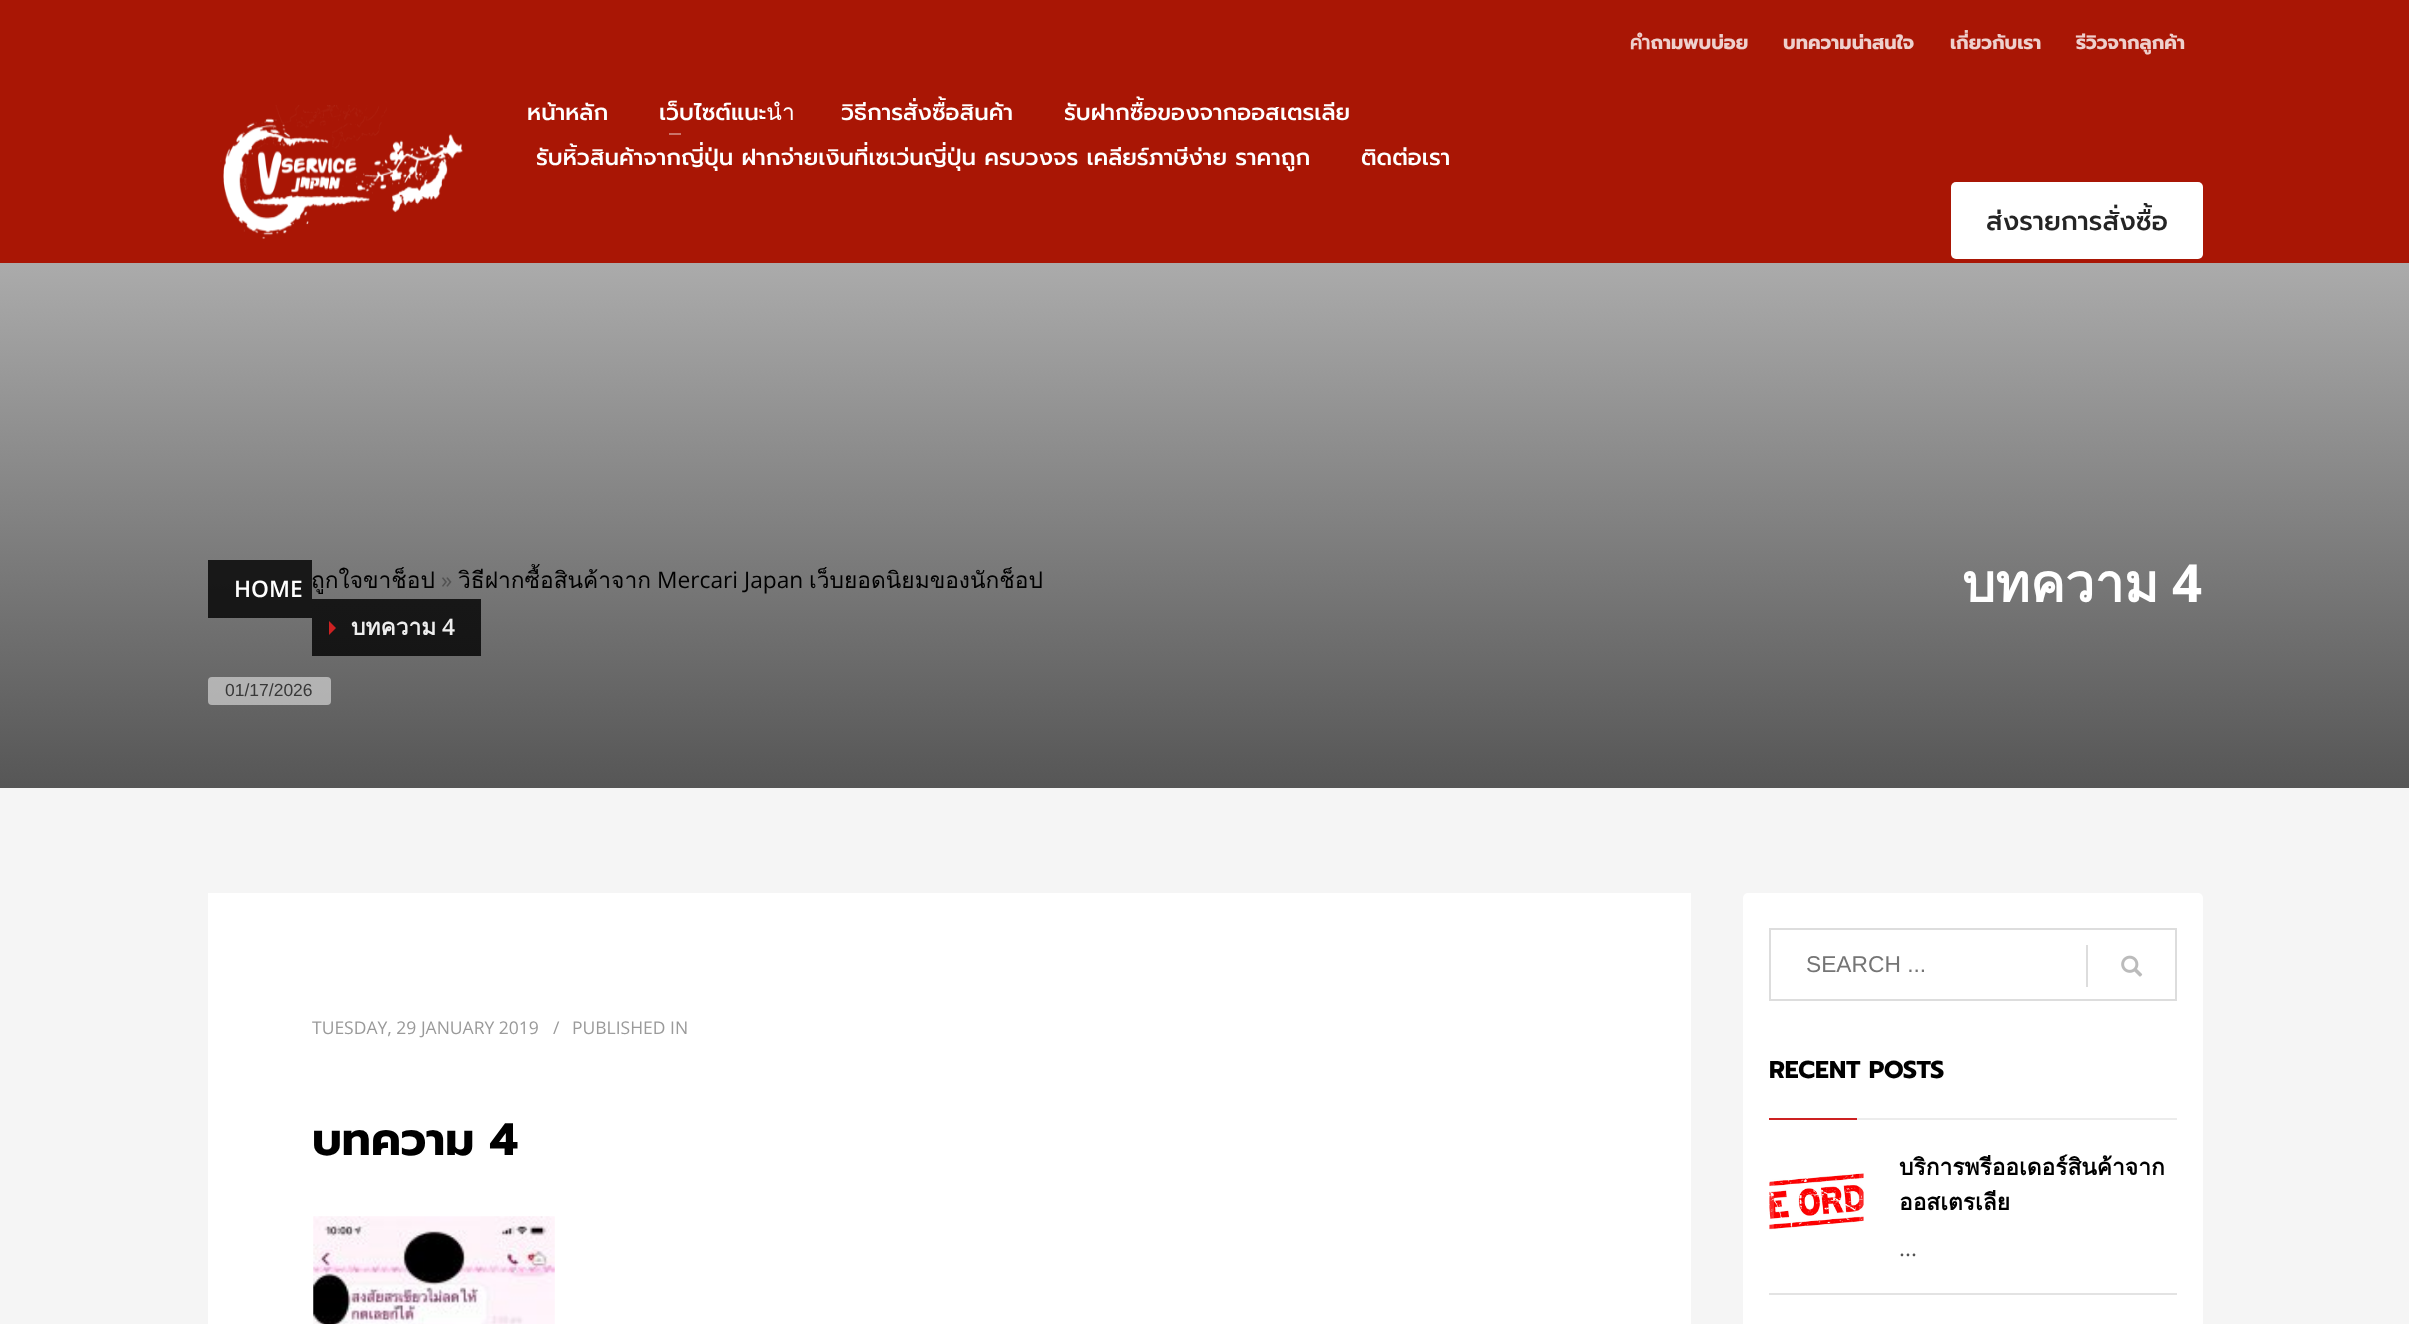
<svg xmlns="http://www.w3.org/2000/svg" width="2409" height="1324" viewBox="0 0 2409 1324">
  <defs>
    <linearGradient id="g1" gradientUnits="userSpaceOnUse" x1="1205" y1="262" x2="1205" y2="788"><stop offset="0" stop-color="#ababab"/><stop offset="1" stop-color="#565656"/></linearGradient>
    <linearGradient id="g2" gradientUnits="userSpaceOnUse" x1="1205" y1="262" x2="1205" y2="788"><stop offset="0" stop-color="#222"/><stop offset="1" stop-color="#111"/></linearGradient>
  </defs>
  <rect width="100%" height="100%" fill="#f5f5f5"/>
  <path d="M0 0h2409v263H0z" fill="#a91605"/>
  <image x="220" y="105" width="243" height="134" href="img/1.png"/>
  <path d="M669 133h12v2H669z" fill="#cb7369"/>
  <rect x="1951" y="182" width="252" height="77" rx="5" fill="#fff"/>
  <path d="M0 263h2409v525H0z" fill="url(#g1)"/>
  <path d="M312 599h169v57H312z" fill="url(#g2)"/>
  <path d="M329 635V621L336 628Z" fill="#cd2122"/>
  <rect x="208" y="677" width="123" height="28" rx="4" fill="#ffffff80"/>
  <path d="M208 893h1483v431H208z" fill="#fff"/>
  <image x="313" y="1216" width="242" height="108" href="img/2.png"/>
  <rect x="1743" y="893" width="460" height="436" rx="5" fill="#fff"/>
  <path d="M1770 929h406v71H1770z" fill="none" stroke="#ddd" stroke-width="2"/>
  <path d="M2086 945h2v42H2086z" fill="#ddd"/>
  <image x="2121" y="955" width="22" height="22" href="img/3.png"/>
  <path d="M1769 1118h88v2H1769z" fill="#cd2122"/>
  <path d="M1857 1118h320v2H1857z" fill="#ececec"/>
  <path d="M1769 1293h408v2H1769z" fill="#e3e3e3"/>
  <image x="1769" y="1173" width="95" height="57" href="img/4.png"/>
  <rect x="1771.5" y="1161.5" width="90" height="80" rx="2.5" fill="none" stroke="#ffffff26" stroke-width="5"/>
  <g font-family="Prompt" font-size="19.25" font-weight="bold" fill="#eed0cd">
    <text x="1630" y="49">คำถามพบบ่อย</text>
    <text x="1783" y="49">บทความน่าสนใจ</text>
    <text x="1950" y="49">เกี่ยวกับเรา</text>
    <text x="2076" y="49">รีวิวจากลูกค้า</text>
  </g>
  <g font-family="Prompt" font-size="22.75" font-weight="500" fill="#fff">
    <text x="527" y="120">หน้าหลัก</text>
    <text x="659" y="120">เว็บไซต์แนะนำ</text>
    <text x="841" y="120">วิธีการสั่งซื้อสินค้า</text>
    <text x="1064" y="120">รับฝากซื้อของจากออสเตรเลีย</text>
    <text x="536" y="165">รับหิ้วสินค้าจากญี่ปุ่น ฝากจ่ายเงินที่เซเว่นญี่ปุ่น ครบวงจร เคลียร์ภาษีง่าย ราคาถูก</text>
    <text x="1361" y="165">ติดต่อเรา</text>
  </g>
  <text x="1986" y="230" font-family="Prompt" font-size="26.25" font-weight="500" fill="#242424">ส่งรายการสั่งซื้อ</text>
  <text x="311" y="588" font-family="Loma" font-size="22.75" fill="#000">ถูกใจขาช็อป</text>
  <path d="M208 560h104v58H208z" fill="#000000cc"/>
  <text x="234" y="597" font-family="Open Sans" font-size="22.75" font-weight="600" fill="#fff">HOME</text>
  <text x="441" y="588" font-family="Open Sans" font-size="22.75" fill="#535353">»</text>
  <text x="458" y="588" font-family="Loma" font-size="22.75" fill="#000">วิธีฝากซื้อสินค้าจาก</text>
  <text x="657" y="588" font-family="Open Sans" font-size="22.75" fill="#000">Mercari Japan</text>
  <text x="809" y="588" font-family="Loma" font-size="22.75" fill="#000">เว็บยอดนิยมของนักช็อป</text>
  <text x="351" y="635" font-family="Loma" font-size="22.75" font-weight="bold" fill="#eee">บทความ</text>
  <text x="442" y="635" font-family="Open Sans" font-size="22.75" font-weight="600" fill="#eee">4</text>
  <text x="225" y="696" font-family="Liberation Sans" font-size="17.5" fill="#383838">01/17/2026</text>
  <text x="1962" y="602" font-family="Loma" font-size="52.5" font-weight="bold" fill="#fff">บทความ</text>
  <text x="2172" y="602" font-family="Open Sans" font-size="52.5" font-weight="bold" fill="#fff">4</text>
  <g font-family="Open Sans" font-size="17.5" fill="#9a9a9a">
    <text x="312" y="1034">TUESDAY, 29 JANUARY 2019</text>
    <text x="553" y="1034">/</text>
    <text x="572" y="1034">PUBLISHED IN</text>
  </g>
  <text x="312" y="1155" font-family="Prompt" font-size="45.5" font-weight="bold" fill="#000">บทความ 4</text>
  <text x="1806" y="972" font-family="Liberation Sans" font-size="22.75" fill="#757575">SEARCH ...</text>
  <text x="1769" y="1078" font-family="Prompt" font-size="24.5" font-weight="bold" fill="#000">RECENT POSTS</text>
  <g font-family="Loma" font-size="22.75" font-weight="bold" fill="#000">
    <text x="1899" y="1175">บริการพรีออเดอร์สินค้าจาก</text>
    <text x="1899" y="1210">ออสเตรเลีย</text>
  </g>
  <text x="1899" y="1256" font-family="Open Sans" font-size="22.75" fill="#535353">...</text>
</svg>
